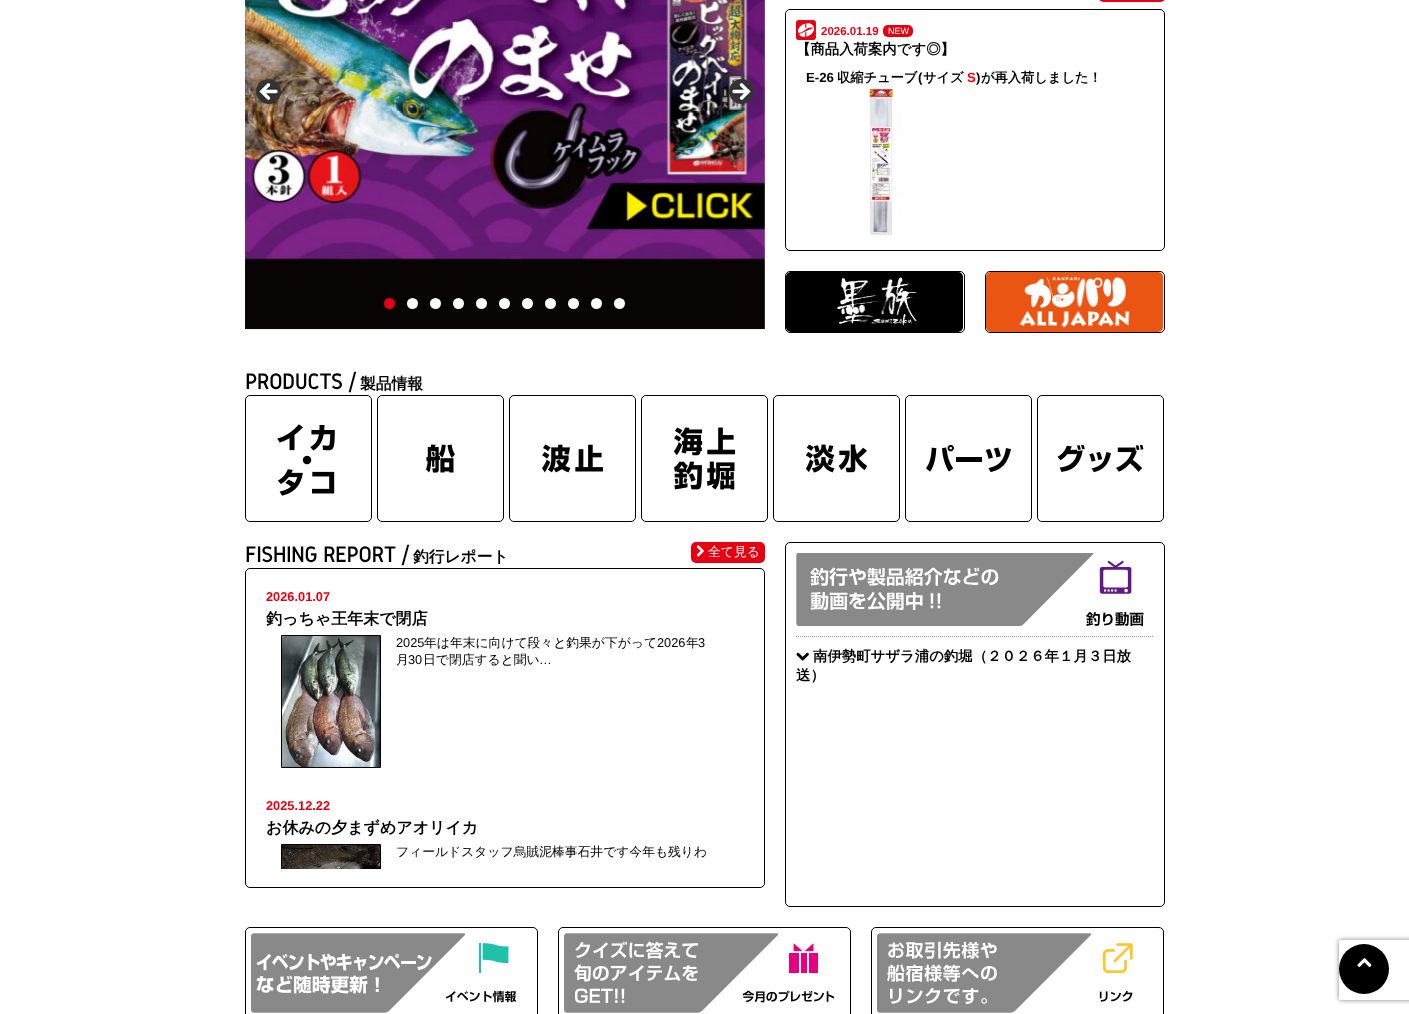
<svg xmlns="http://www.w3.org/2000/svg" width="1409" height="1014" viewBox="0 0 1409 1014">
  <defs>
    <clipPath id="clip1"><path d="M266 589h488v280H266z"/></clipPath>
    <clipPath id="clip2"><path d="M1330 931H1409V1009H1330ZM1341 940H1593C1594 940 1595 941 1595 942V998C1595 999 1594 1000 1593 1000H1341C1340 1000 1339 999 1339 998V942C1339 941 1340 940 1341 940Z" clip-rule="evenodd"/></clipPath>
  </defs>
  <rect width="100%" height="100%" fill="#fff"/>
  <image x="245" y="0" width="520" height="330" href="img/1.png"/>
  <image x="256" y="79" width="25" height="25" href="img/2.png"/>
  <image x="729" y="79" width="25" height="25" href="img/3.png"/>
  <circle cx="389.5" cy="303.5" r="5.5" fill="#e70012"/>
  <circle cx="412.5" cy="303.5" r="5.5" fill="#fff"/>
  <circle cx="435.5" cy="303.5" r="5.5" fill="#fff"/>
  <circle cx="458.5" cy="303.5" r="5.5" fill="#fff"/>
  <circle cx="481.5" cy="303.5" r="5.5" fill="#fff"/>
  <circle cx="504.5" cy="303.5" r="5.5" fill="#fff"/>
  <circle cx="527.5" cy="303.5" r="5.5" fill="#fff"/>
  <circle cx="550.5" cy="303.5" r="5.5" fill="#fff"/>
  <circle cx="573.5" cy="303.5" r="5.5" fill="#fff"/>
  <circle cx="596.5" cy="303.5" r="5.5" fill="#fff"/>
  <circle cx="619.5" cy="303.5" r="5.5" fill="#fff"/>
  <rect x="1099" y="-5" width="66" height="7" rx="5" fill="#e70012"/>
  <rect x="785.5" y="9.5" width="379" height="241" rx="4.5" fill="none" stroke="#000"/>
  <image x="796" y="20" width="20" height="20" href="img/4.png"/>
  <rect x="883" y="25" width="30" height="12" rx="5" fill="#e70012"/>
  <image x="864" y="87" width="38" height="150" href="img/5.png"/>
  <rect x="785.5" y="271.5" width="179" height="61" rx="4.5" fill="none" stroke="#000"/>
  <image x="786" y="272" width="177" height="60" href="img/6.png"/>
  <rect x="985.5" y="271.5" width="179" height="61" rx="4.5" fill="none" stroke="#000"/>
  <image x="986" y="272" width="177" height="60" href="img/7.png"/>
  <rect x="245.5" y="395.5" width="126" height="126" rx="4.5" fill="none" stroke="#000"/>
  <image x="277" y="424" width="58" height="72" href="img/8.png"/>
  <rect x="377.5" y="395.5" width="126" height="126" rx="4.5" fill="none" stroke="#000"/>
  <image x="426" y="444" width="29" height="29" href="img/9.png"/>
  <rect x="509.5" y="395.5" width="126" height="126" rx="4.5" fill="none" stroke="#000"/>
  <image x="542" y="444" width="61" height="29" href="img/10.png"/>
  <rect x="641.5" y="395.5" width="126" height="126" rx="4.5" fill="none" stroke="#000"/>
  <image x="674" y="427" width="62" height="63" href="img/11.png"/>
  <rect x="773.5" y="395.5" width="126" height="126" rx="4.5" fill="none" stroke="#000"/>
  <image x="805" y="444" width="62" height="29" href="img/12.png"/>
  <rect x="905.5" y="395.5" width="126" height="126" rx="4.5" fill="none" stroke="#000"/>
  <image x="926" y="444" width="85" height="28" href="img/13.png"/>
  <rect x="1037.5" y="395.5" width="126" height="126" rx="4.5" fill="none" stroke="#000"/>
  <image x="1057" y="444" width="87" height="29" href="img/14.png"/>
  <rect x="691" y="542" width="74" height="21" rx="5" fill="#e70012"/>
  <image x="696" y="545" width="8" height="12" href="img/15.png"/>
  <rect x="245.5" y="568.5" width="519" height="319" rx="4.5" fill="none" stroke="#000"/>
  <path d="M281.5 635.5h99v132H281.5z" fill="none" stroke="#000"/>
  <image x="282" y="636" width="98" height="131" href="img/16.png"/>
  <rect x="245.5" y="927.5" width="292" height="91" rx="4.5" fill="none" stroke="#000"/>
  <image x="251" y="933" width="265" height="80" href="img/20.png"/>
  <g clip-path="url(#clip1)">
    <path d="M281.5 844.5h99v131H281.5z" fill="none" stroke="#000"/>
  </g>
  <image x="282" y="845" width="98" height="24" href="img/17.png"/>
  <rect x="785.5" y="542.5" width="379" height="364" rx="4.5" fill="none" stroke="#000"/>
  <image x="796" y="553" width="348" height="73" href="img/18.png"/>
  <path d="M796 636.5H1154" fill="none" stroke="#999" stroke-dasharray="1 1"/>
  <image x="796" y="652" width="13" height="9" href="img/19.png"/>
  <rect x="558.5" y="927.5" width="292" height="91" rx="4.5" fill="none" stroke="#000"/>
  <image x="564" y="933" width="271" height="80" href="img/21.png"/>
  <rect x="871.5" y="927.5" width="292" height="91" rx="4.5" fill="none" stroke="#000"/>
  <image x="877" y="933" width="256" height="80" href="img/22.png"/>
  <g clip-path="url(#clip2)">
    <rect x="1339" y="940" width="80" height="60" rx="2" fill="#808080" filter="blur(2.5px)"/>
  </g>
  <circle cx="1364" cy="969" r="25" fill="#000"/>
  <image x="1357" y="958" width="15" height="9" href="img/23.png"/>
  <text x="821" y="35" font-family="Liberation Sans" font-size="11.5" font-weight="bold" fill="#e70012">2026.01.19</text>
  <text x="888" y="34" font-family="Liberation Sans" font-size="9" fill="#fff">NEW</text>
  <text x="796" y="54" font-family="WenQuanYi Zen Hei" font-size="14.4" font-weight="bold" fill="#000">【商品入荷案内です◎】</text>
  <text x="806" y="82" font-family="Liberation Sans" font-size="13.25" font-weight="bold" fill="#000">E-26</text>
  <text x="837" y="82" font-family="WenQuanYi Zen Hei" font-size="13.25" font-weight="bold" fill="#000">収縮チューブ</text>
  <text x="918" y="82" font-family="Liberation Sans" font-size="13.25" font-weight="bold" fill="#000">(</text>
  <text x="923" y="82" font-family="WenQuanYi Zen Hei" font-size="13.25" font-weight="bold" fill="#000">サイズ</text>
  <text x="967" y="82" font-family="Liberation Sans" font-size="13.25" font-weight="bold" fill="#f00">S</text>
  <text x="976" y="82" font-family="Liberation Sans" font-size="13.25" font-weight="bold" fill="#000">)</text>
  <text x="981" y="82" font-family="WenQuanYi Zen Hei" font-size="13.25" font-weight="bold" fill="#000">が再入荷しました！</text>
  <text x="245" y="389" font-family="Gidole" font-size="22.5" font-weight="bold" fill="#000">PRODUCTS /</text>
  <text x="360" y="389" font-family="WenQuanYi Zen Hei" font-size="15.75" font-weight="bold" fill="#000">製品情報</text>
  <text x="245" y="562" font-family="Gidole" font-size="22.5" font-weight="bold" fill="#000">FISHING REPORT /</text>
  <text x="413" y="562" font-family="WenQuanYi Zen Hei" font-size="15.75" font-weight="bold" fill="#000">釣行レポート</text>
  <text x="708" y="556" font-family="WenQuanYi Zen Hei" font-size="12.8" font-weight="500" fill="#fff">全て見る</text>
  <text x="266" y="601" font-family="Liberation Sans" font-size="12.8" font-weight="bold" fill="#e70012">2026.01.07</text>
  <text x="266" y="624" font-family="WenQuanYi Zen Hei" font-size="16" font-weight="bold" fill="#000">釣っちゃ王年末で閉店</text>
  <text x="396" y="647" font-family="Liberation Sans" font-size="12.8" fill="#000">2025</text>
  <text x="424" y="647" font-family="WenQuanYi Zen Hei" font-size="12.8" font-weight="500" fill="#000">年は年末に向けて段々と釣果が下がって</text>
  <text x="657" y="647" font-family="Liberation Sans" font-size="12.8" fill="#000">2026</text>
  <text x="686" y="647" font-family="WenQuanYi Zen Hei" font-size="12.8" font-weight="500" fill="#000">年</text>
  <text x="698" y="647" font-family="Liberation Sans" font-size="12.8" fill="#000">3</text>
  <text x="396" y="664" font-family="WenQuanYi Zen Hei" font-size="12.8" font-weight="500" fill="#000">月</text>
  <text x="408" y="664" font-family="Liberation Sans" font-size="12.8" fill="#000">30</text>
  <text x="423" y="664" font-family="WenQuanYi Zen Hei" font-size="12.8" font-weight="500" fill="#000">日で閉店すると聞い</text>
  <text x="539" y="664" font-family="Liberation Sans" font-size="12.8" fill="#000">…</text>
  <text x="266" y="810" font-family="Liberation Sans" font-size="12.8" font-weight="bold" fill="#e70012">2025.12.22</text>
  <text x="266" y="833" font-family="WenQuanYi Zen Hei" font-size="16" font-weight="bold" fill="#000">お休みの夕まずめアオリイカ</text>
  <text x="396" y="856" font-family="WenQuanYi Zen Hei" font-size="12.8" font-weight="500" fill="#000">フィールドスタッフ烏賊泥棒事石井です今年も残りわ</text>
  <g font-family="WenQuanYi Zen Hei" font-size="14.4" font-weight="bold" fill="#000">
    <text x="813" y="661">南伊勢町サザラ浦の釣堀（２０２６年１月３日放</text>
    <text x="796" y="680">送）</text>
  </g>
</svg>
